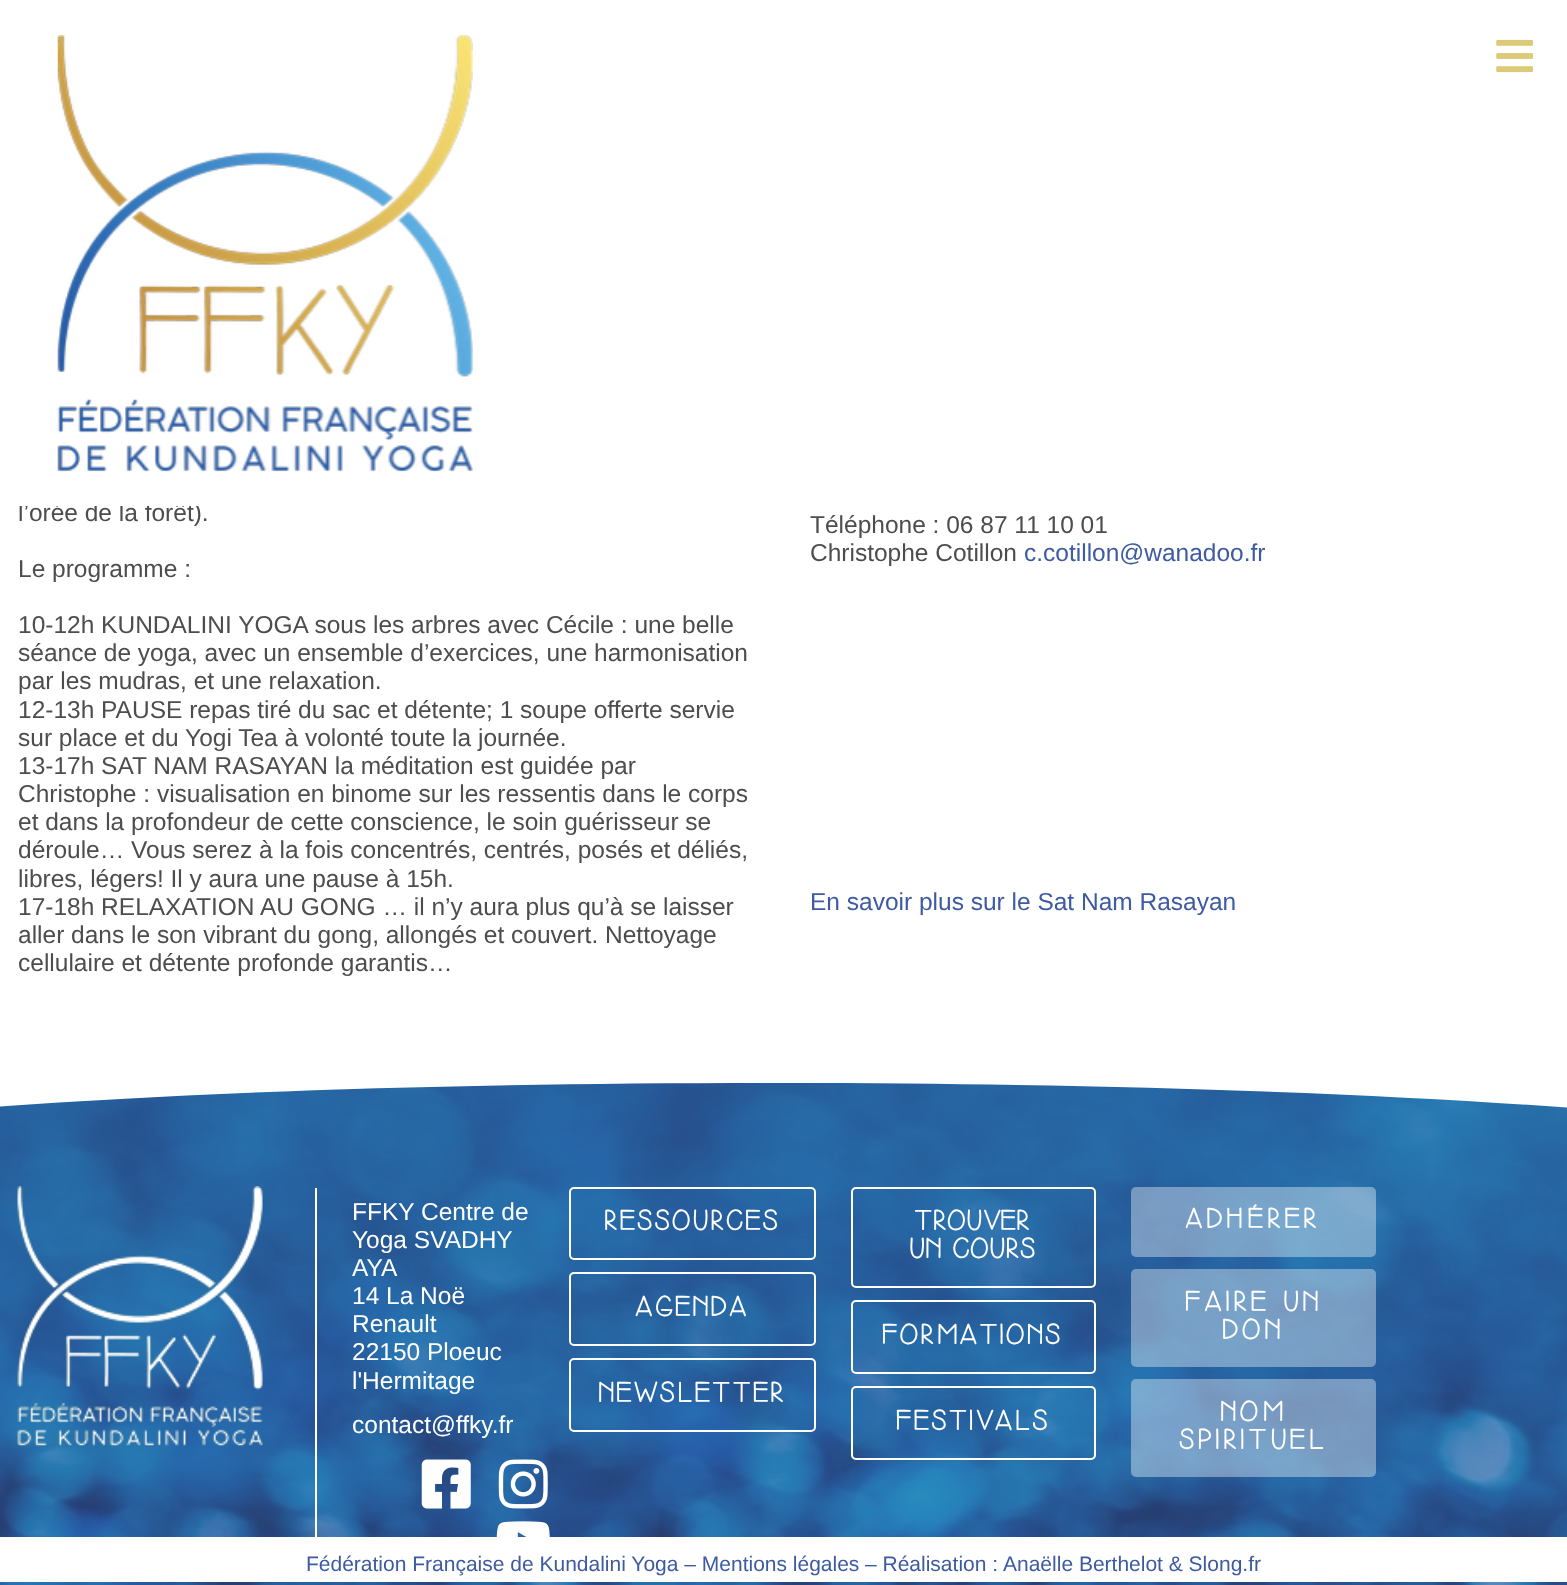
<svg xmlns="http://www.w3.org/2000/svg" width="1567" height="1585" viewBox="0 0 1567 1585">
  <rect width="100%" height="100%" fill="#fff"/>
  <image x="57" y="35" width="416" height="437" href="img/1.png"/>
  <image x="1496" y="39" width="37" height="34" href="img/2.png"/>
  <image x="0" y="1083" width="1567" height="502" href="img/3.png"/>
  <path d="M784 1083C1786 1084 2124 1175 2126 1199V1080H-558V1197C-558 1175-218 1082 784 1083Z" fill="#fff"/>
  <image x="17" y="1186" width="246" height="260" href="img/4.png"/>
  <path d="M315 1188h2v349H315z" fill="#fff"/>
  <image x="421" y="1459" width="50" height="50" href="img/5.png"/>
  <image x="498" y="1459" width="50" height="50" href="img/6.png"/>
  <image x="496" y="1521" width="54" height="16" href="img/7.png"/>
  <rect x="570" y="1188" width="245" height="71" rx="4" fill="none" stroke="#fff" stroke-width="2"/>
  <rect x="570" y="1273" width="245" height="72" rx="4" fill="none" stroke="#fff" stroke-width="2"/>
  <rect x="570" y="1359" width="245" height="72" rx="4" fill="none" stroke="#fff" stroke-width="2"/>
  <rect x="852" y="1188" width="243" height="99" rx="4" fill="none" stroke="#fff" stroke-width="2"/>
  <rect x="852" y="1301" width="243" height="72" rx="4" fill="none" stroke="#fff" stroke-width="2"/>
  <rect x="852" y="1387" width="243" height="72" rx="4" fill="none" stroke="#fff" stroke-width="2"/>
  <rect x="1131" y="1187" width="245" height="70" rx="5" fill="#ffffff61"/>
  <rect x="1131" y="1269" width="245" height="98" rx="5" fill="#ffffff61"/>
  <rect x="1131" y="1379" width="245" height="98" rx="5" fill="#ffffff61"/>
  <path d="M0 1537h1567v45H0z" fill="#fff"/>
  <text x="18" y="521" font-family="Liberation Sans" font-size="24.5" fill="#4d4d4d">l’orée de la forêt).</text>
  <path d="M19 502h179v4H19z" fill="#fff"/>
  <g font-family="Liberation Sans" font-size="24.5" fill="#4d4d4d">
    <text x="810" y="533">Téléphone : 06 87 11 10 01</text>
    <text x="810" y="561">Christophe Cotillon</text>
  </g>
  <g font-family="Liberation Sans" font-size="24.5" fill="#3d5aa2">
    <text x="1024" y="561">c.cotillon@wanadoo.fr</text>
    <text x="810" y="910">En savoir plus sur le Sat Nam Rasayan</text>
  </g>
  <g font-family="Liberation Sans" font-size="24.5" fill="#4d4d4d">
    <text x="18" y="577">Le programme :</text>
    <text x="18" y="633">10-12h KUNDALINI YOGA sous les arbres avec Cécile : une belle</text>
    <text x="18" y="661">séance de yoga, avec un ensemble d’exercices, une harmonisation</text>
    <text x="18" y="689">par les mudras, et une relaxation.</text>
    <text x="18" y="718">12-13h PAUSE repas tiré du sac et détente; 1 soupe offerte servie</text>
    <text x="18" y="746">sur place et du Yogi Tea à volonté toute la journée.</text>
    <text x="18" y="774">13-17h SAT NAM RASAYAN la méditation est guidée par</text>
    <text x="18" y="802">Christophe : visualisation en binome sur les ressentis dans le corps</text>
    <text x="18" y="830">et dans la profondeur de cette conscience, le soin guérisseur se</text>
    <text x="18" y="858">déroule… Vous serez à la fois concentrés, centrés, posés et déliés,</text>
    <text x="18" y="887">libres, légers! Il y aura une pause à 15h.</text>
    <text x="18" y="915">17-18h RELAXATION AU GONG … il n’y aura plus qu’à se laisser</text>
    <text x="18" y="943">aller dans le son vibrant du gong, allongés et couvert. Nettoyage</text>
    <text x="18" y="971">cellulaire et détente profonde garantis…</text>
  </g>
  <g font-family="Liberation Sans" font-size="24.5" fill="#fff">
    <text x="352" y="1220">FFKY Centre de</text>
    <text x="352" y="1248">Yoga SVADHY</text>
    <text x="352" y="1276">AYA</text>
    <text x="352" y="1304">14 La Noë</text>
    <text x="352" y="1332">Renault</text>
    <text x="352" y="1360">22150 Ploeuc</text>
    <text x="352" y="1389">l'Hermitage</text>
    <text x="352" y="1433">contact@ffky.fr</text>
  </g>
  <g font-family="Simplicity" font-size="28" font-weight="bold" letter-spacing="3.5" fill="#fff">
    <text x="604" y="1230">RESSOURCES</text>
    <text x="635" y="1316">AGENDA</text>
    <text x="598" y="1402">NEWSLETTER</text>
  </g>
  <g font-family="Simplicity" font-size="28" font-weight="bold" letter-spacing="2" fill="#fff">
    <text x="914" y="1230">TROUVER</text>
    <text x="909" y="1258">UN COURS</text>
  </g>
  <g font-family="Simplicity" font-size="28" font-weight="bold" letter-spacing="3.5" fill="#fff">
    <text x="882" y="1344">FORMATIONS</text>
    <text x="896" y="1430">FESTIVALS</text>
  </g>
  <g font-family="Simplicity" font-size="28" font-weight="bold" letter-spacing="5" fill="#fff">
    <text x="1185" y="1228">ADHÉRER</text>
    <text x="1185" y="1311">FAIRE UN</text>
    <text x="1222" y="1339">DON</text>
    <text x="1220" y="1421">NOM</text>
    <text x="1179" y="1449">SPIRITUEL</text>
  </g>
  <g font-family="Liberation Sans" font-size="21" fill="#3d5aa2">
    <text x="306" y="1571">Fédération Française de Kundalini Yoga – Mentions légales</text>
    <text x="865" y="1571">– Réalisation :</text>
    <text x="1003" y="1571">Anaëlle Berthelot &amp; Slong.fr</text>
  </g>
</svg>
